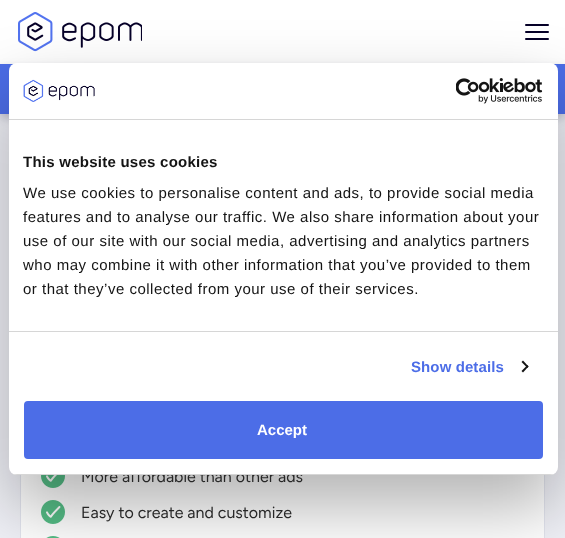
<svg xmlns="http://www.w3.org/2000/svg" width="565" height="538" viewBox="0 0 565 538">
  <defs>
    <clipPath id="clip1"><rect x="9" y="63" width="549" height="412" rx="8"/></clipPath>
  </defs>
  <rect width="100%" height="100%" fill="#f0f1f7"/>
  <path d="M0 0h565v64H0z" fill="#fff"/>
  <image x="18" y="12" width="124" height="40" href="img/1.png"/>
  <rect x="525" y="31" width="24" height="2" rx="1" fill="#060028"/>
  <rect x="525" y="24" width="24" height="2" rx="1" fill="#060028"/>
  <rect x="525" y="38" width="24" height="2" rx="1" fill="#060028"/>
  <path d="M0 68h565v50H0z" fill="#06002833" filter="blur(5px)"/>
  <path d="M0 64h565v50H0z" fill="#4c6de7"/>
  <path d="M21 475h523v63H21z" fill="#fff"/>
  <path d="M20.5 408.5h524v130H20.5z" fill="none" stroke="#e2e4ee"/>
  <image x="41" y="475" width="24" height="13" href="img/4.png"/>
  <image x="41" y="500" width="24" height="24" href="img/5.png"/>
  <image x="46" y="536" width="14" height="2" href="img/6.png"/>
  <rect x="9" y="95" width="549" height="412" rx="8" fill="#0000004d" filter="blur(34px)"/>
  <text x="81" y="482" font-family="Figtree" font-size="16" fill="#272727">More affordable than other ads</text>
  <rect x="9" y="63" width="549" height="412" rx="8" fill="#fff"/>
  <rect x="25" y="402" width="517" height="56" rx="3" fill="#4c6de7" stroke="#4c6de7" stroke-width="2"/>
  <text x="257" y="435" font-family="Liberation Sans" font-size="15" font-weight="bold" fill="#fff">Accept</text>
  <g clip-path="url(#clip1)">
    <path d="M9 474h549v1H9z" fill="#d6d6d6"/>
  </g>
  <path d="M523 360.5L528.5 366.5L527.5 368L521.5 362Z" fill="#141414"/>
  <path d="M527.5 365L528.5 366.5L523 372.5L521.5 371Z" fill="#141414"/>
  <g font-family="Liberation Sans" font-size="15" letter-spacing="0.5" fill="#141414">
    <text x="23" y="294">or that they’ve collected from your use of their services.</text>
    <text x="23" y="270">who may combine it with other information that you’ve provided to them</text>
    <text x="23" y="246">use of our site with our social media, advertising and analytics partners</text>
    <text x="23" y="222">features and to analyse our traffic. We also share information about your</text>
    <text x="23" y="198">We use cookies to personalise content and ads, to provide social media</text>
  </g>
  <text x="23" y="167" font-family="Liberation Sans" font-size="15" font-weight="bold" letter-spacing="0.25" fill="#141414">This website uses cookies</text>
  <path d="M9 331h549v1H9z" fill="#d6d6d6"/>
  <text x="411" y="372" font-family="Liberation Sans" font-size="15" font-weight="bold" letter-spacing="0.1" fill="#4c6de7">Show details</text>
  <image x="456" y="78" width="87" height="26" href="img/3.png"/>
  <image x="23" y="79" width="72" height="23" href="img/2.png"/>
  <path d="M9 119h549v1H9z" fill="#d6d6d6"/>
  <text x="81" y="518" font-family="Figtree" font-size="16" fill="#272727">Easy to create and customize</text>
</svg>
